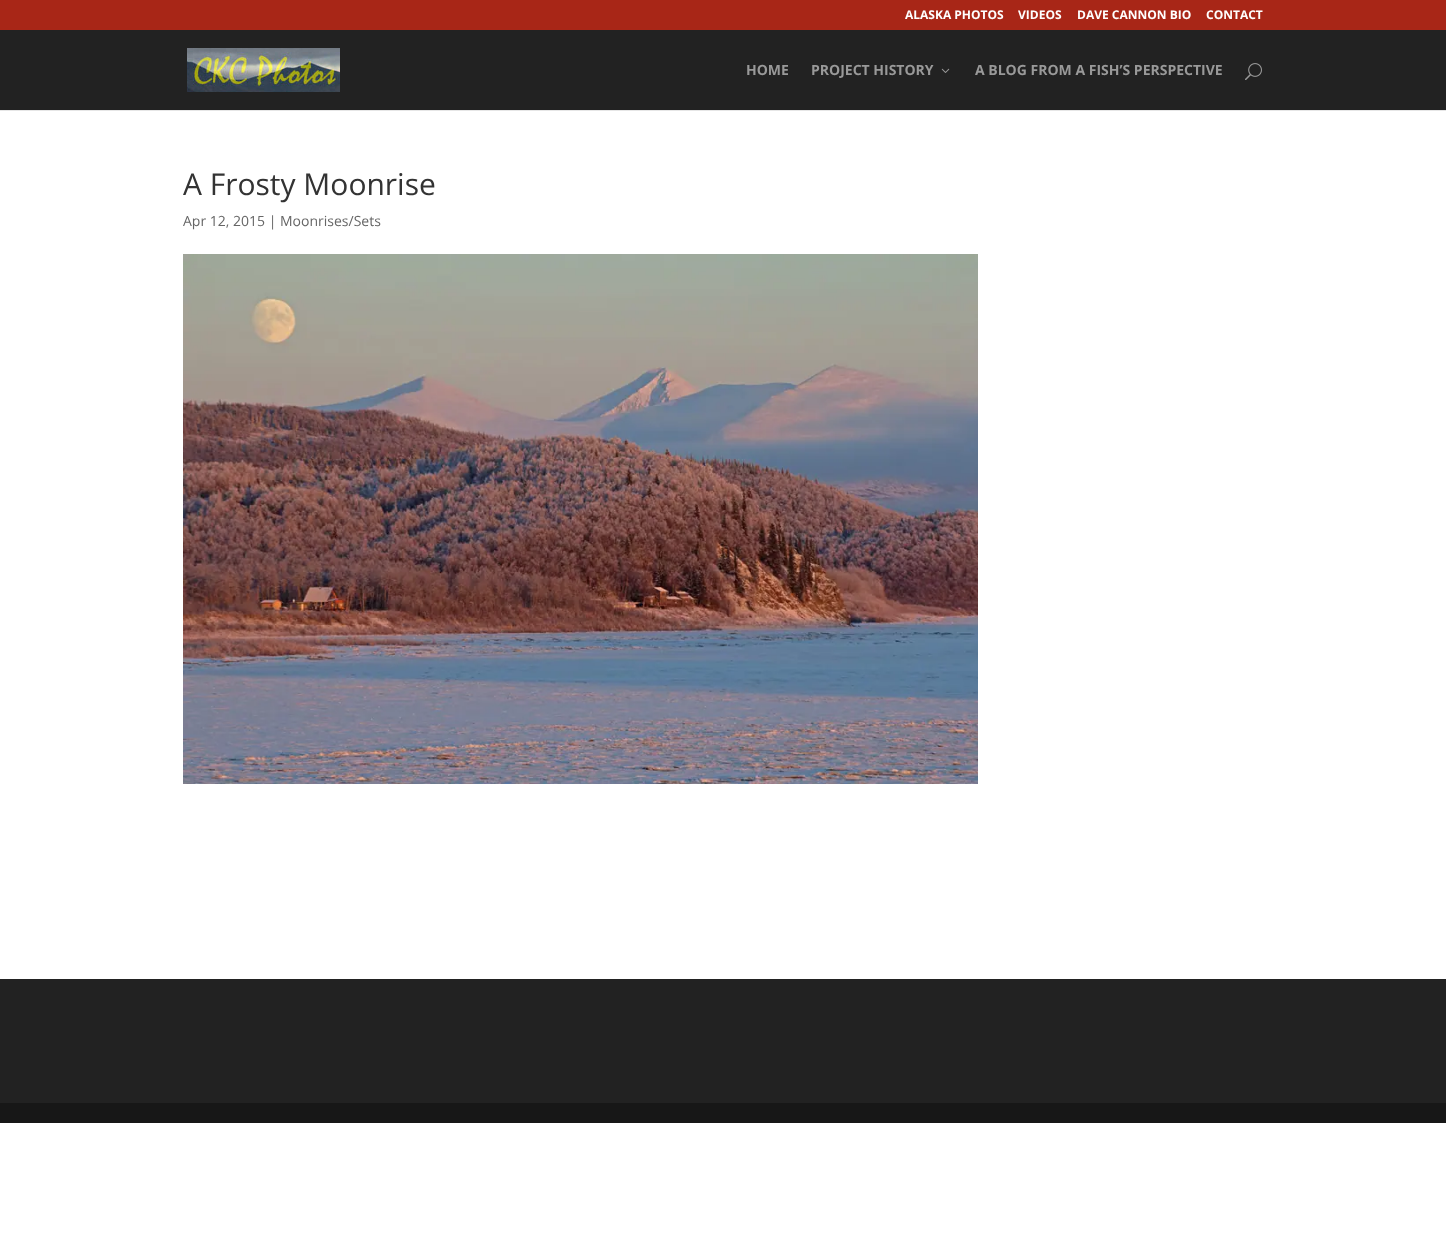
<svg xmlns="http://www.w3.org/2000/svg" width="1446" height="1240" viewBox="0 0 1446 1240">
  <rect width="100%" height="100%" fill="#fff"/>
  <path d="M0 0h1446v30H0z" fill="#a82617"/>
  <path d="M0 110h1446v1H0z" fill="#e6e6e6"/>
  <path d="M0 30h1446v80H0z" fill="#222"/>
  <image x="187" y="48" width="153" height="44" href="img/1.png"/>
  <image x="941" y="68" width="9" height="5" href="img/2.png"/>
  <image x="1245" y="63" width="17" height="17" href="img/3.png"/>
  <image x="183" y="254" width="795" height="530" href="img/4.png"/>
  <path d="M0 979h1446v124H0z" fill="#222"/>
  <path d="M0 1103h1446v20H0z" fill="#171717"/>
  <g font-family="Open Sans" font-size="12" font-weight="bold" fill="#fff">
    <text x="905" y="19">ALASKA PHOTOS</text>
    <text x="1018" y="19">VIDEOS</text>
    <text x="1077" y="19">DAVE CANNON BIO</text>
    <text x="1206" y="19">CONTACT</text>
  </g>
  <g font-family="Open Sans" font-size="14" font-weight="bold" fill="#999">
    <text x="746" y="75">HOME</text>
    <text x="811" y="75">PROJECT HISTORY</text>
    <text x="975" y="75">A BLOG FROM A FISH’S PERSPECTIVE</text>
  </g>
  <text x="183" y="195" font-family="Open Sans" font-size="30" fill="#333">A Frosty Moonrise</text>
  <text x="183" y="226" font-family="Open Sans" font-size="14" fill="#666">Apr 12, 2015 | Moonrises/Sets</text>
</svg>
